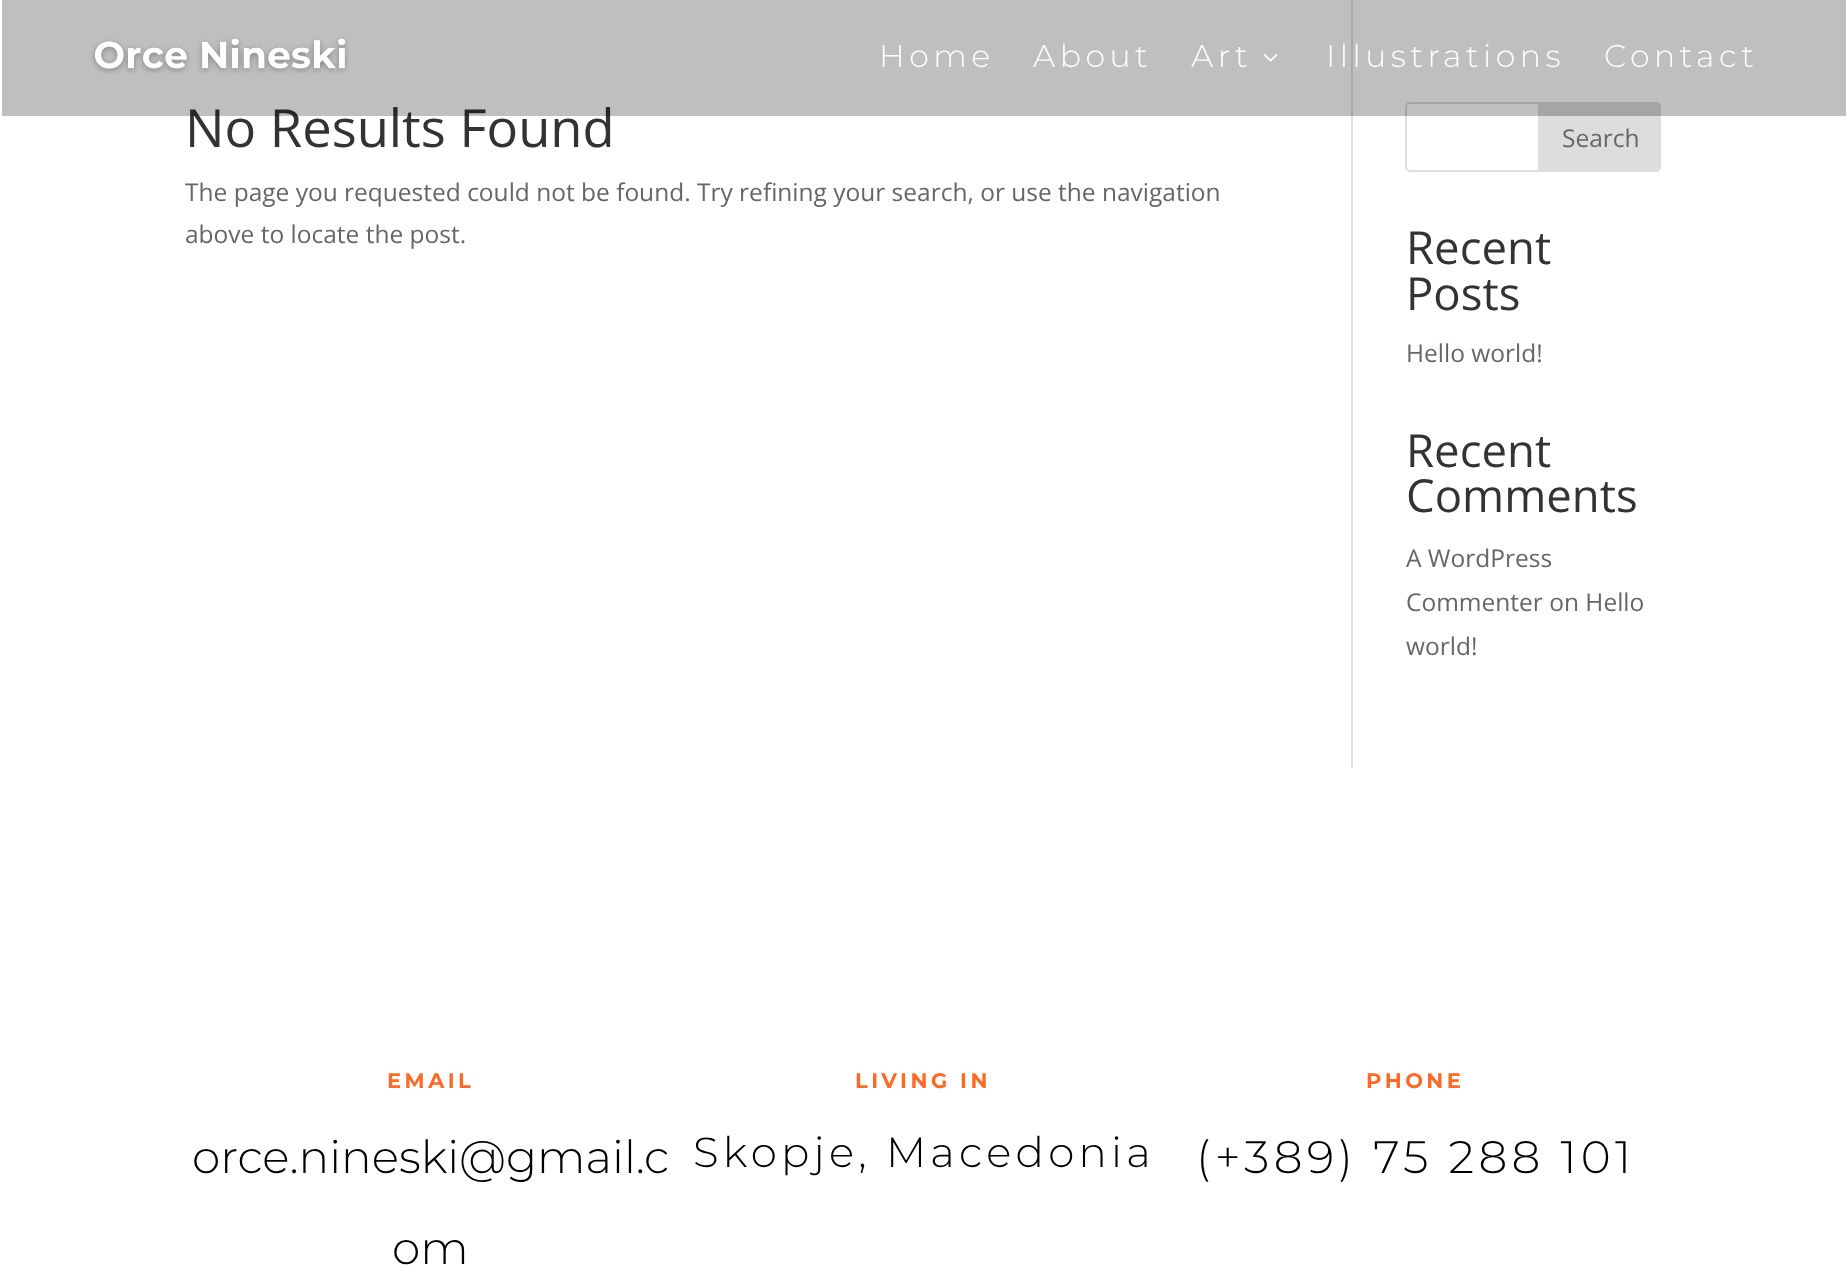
<svg xmlns="http://www.w3.org/2000/svg" width="1846" height="1270" viewBox="0 0 1846 1270">
  <rect width="100%" height="100%" fill="#fff"/>
  <path d="M1351 0h2v768H1351z" fill="#e2e2e2"/>
  <rect x="1406" y="103" width="254" height="68" rx="4" fill="none" stroke="#ddd" stroke-width="2"/>
  <path d="M1539 103H1656C1658 103 1660 105 1660 107V167C1660 169 1658 171 1656 171H1539Z" fill="#ddd" stroke="#ddd" stroke-width="2"/>
  <text x="185" y="147" font-family="Open Sans" font-size="52.5" fill="#333">No Results Found</text>
  <path d="M2 0h1844v116H2z" fill="#00000040"/>
  <g font-family="'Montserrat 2'" font-size="31.5" font-weight="100" letter-spacing="4.5" fill="#fff">
    <text x="1604" y="67">Contact</text>
    <text x="1326" y="67">Illustrations</text>
  </g>
  <image x="1264" y="54" width="13" height="8" href="img/2.png"/>
  <g font-family="'Montserrat 2'" font-size="31.5" font-weight="100" letter-spacing="4.5" fill="#fff">
    <text x="1191" y="67">Art</text>
    <text x="1033" y="67">About</text>
    <text x="879" y="67">Home</text>
  </g>
  <image x="91" y="37" width="258" height="37" href="img/1.png"/>
  <g font-family="Open Sans" font-size="24.5" fill="#666">
    <text x="185" y="201">The page you requested could not be found. Try refining your search, or use the navigation</text>
    <text x="185" y="243">above to locate the post.</text>
    <text x="1562" y="147">Search</text>
  </g>
  <g font-family="Open Sans" font-size="45.5" fill="#333">
    <text x="1406" y="264">Recent</text>
    <text x="1406" y="310">Posts</text>
  </g>
  <text x="1406" y="362" font-family="Open Sans" font-size="24.5" fill="#666">Hello world!</text>
  <g font-family="Open Sans" font-size="45.5" fill="#333">
    <text x="1406" y="467">Recent</text>
    <text x="1406" y="512">Comments</text>
  </g>
  <g font-family="Open Sans" font-size="24.5" fill="#666">
    <text x="1406" y="567">A WordPress</text>
    <text x="1406" y="611">Commenter on Hello</text>
    <text x="1406" y="655">world!</text>
  </g>
  <text x="387" y="1088" font-family="Montserrat" font-size="21" font-weight="100" letter-spacing="3.5" fill="#fd6927">EMAIL</text>
  <g font-family="'Montserrat 2'" font-size="45.5" font-weight="100" fill="#000">
    <text x="192" y="1173">orce.nineski@gmail.c</text>
    <text x="392" y="1264">om</text>
  </g>
  <text x="855" y="1088" font-family="Montserrat" font-size="21" font-weight="100" letter-spacing="3.5" fill="#fd6927">LIVING IN</text>
  <text x="693" y="1167" font-family="'Montserrat 2'" font-size="42" font-weight="100" letter-spacing="4.25" fill="#000">Skopje, Macedonia</text>
  <text x="1366" y="1088" font-family="Montserrat" font-size="21" font-weight="100" letter-spacing="3.5" fill="#fd6927">PHONE</text>
  <text x="1196" y="1173" font-family="'Montserrat 2'" font-size="45.5" font-weight="100" letter-spacing="4.25" fill="#000">(+389) 75 288 101</text>
</svg>
